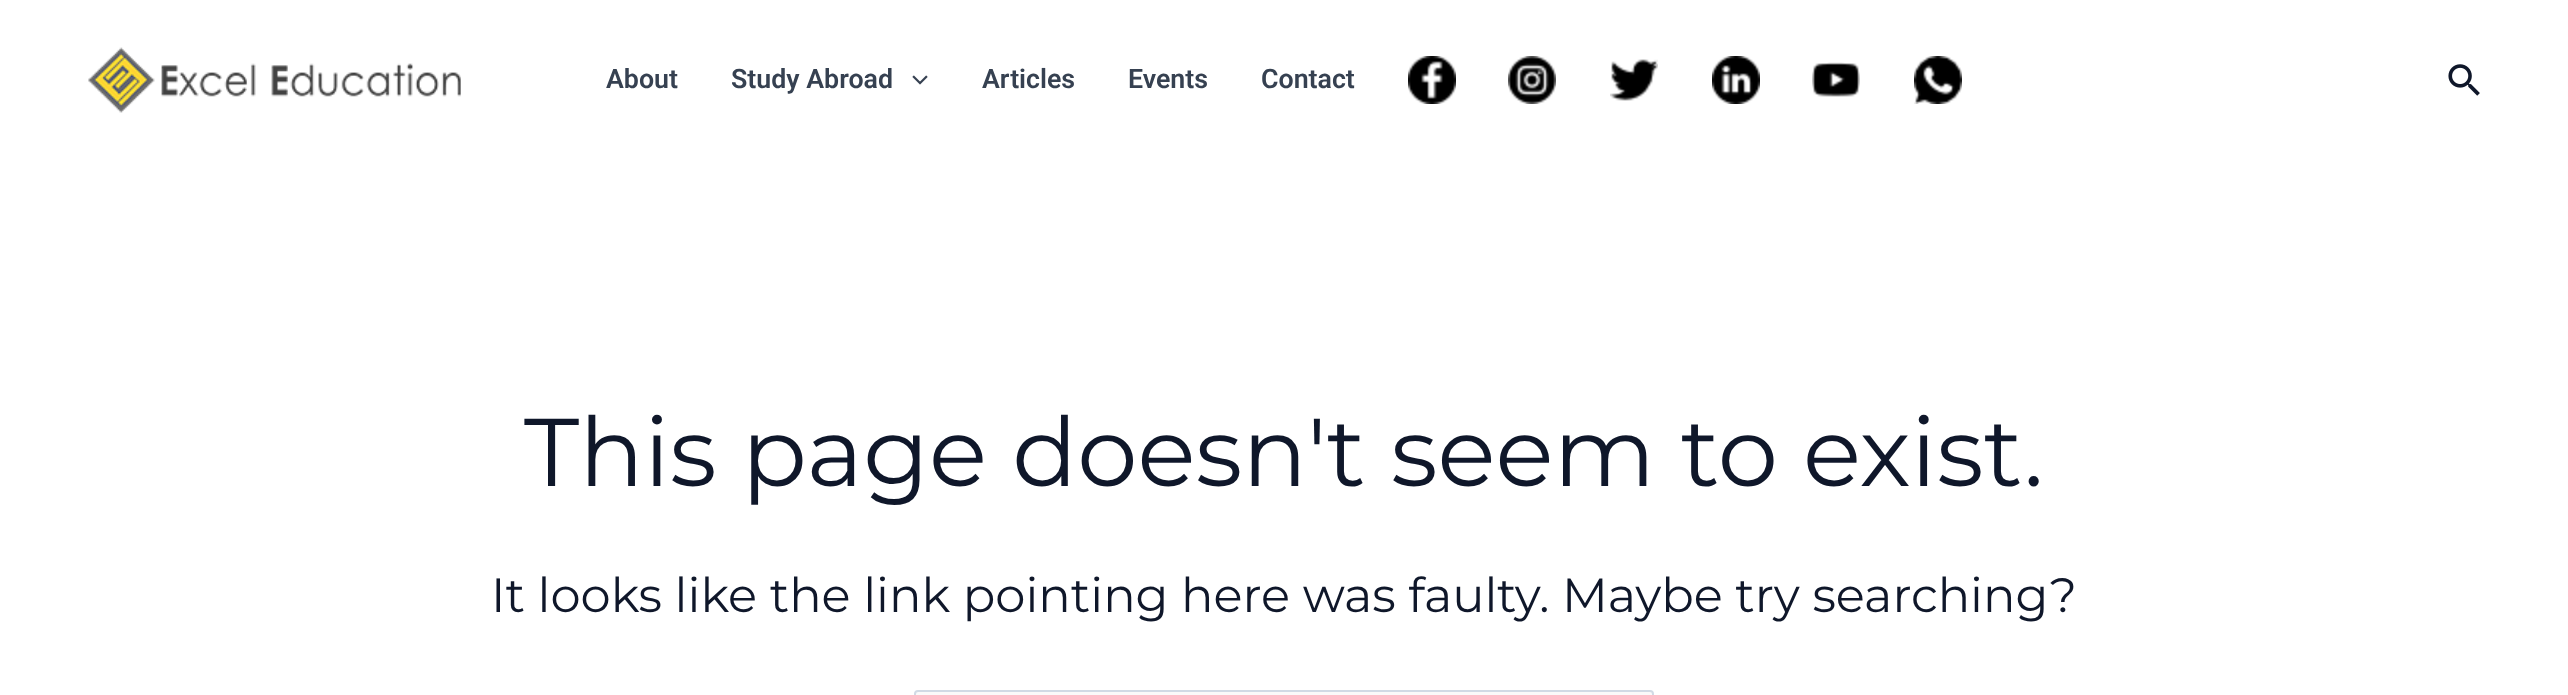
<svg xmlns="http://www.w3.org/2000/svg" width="2568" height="695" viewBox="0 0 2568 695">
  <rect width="100%" height="100%" fill="#fff"/>
  <image x="88" y="47" width="373" height="66" href="img/1.png"/>
  <image x="912" y="75" width="16" height="10" href="img/2.png"/>
  <image x="1408" y="56" width="48" height="48" href="img/3.png"/>
  <image x="1508" y="56" width="48" height="48" href="img/4.png"/>
  <image x="1610" y="59" width="48" height="42" href="img/5.png"/>
  <image x="1712" y="56" width="48" height="48" href="img/6.png"/>
  <image x="1812" y="62" width="48" height="35" href="img/7.png"/>
  <image x="1914" y="56" width="48" height="48" href="img/8.png"/>
  <image x="2448" y="64" width="32" height="32" href="img/9.png"/>
  <rect x="915" y="691" width="738" height="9" rx="3" fill="#fafafa" stroke="#d1dae5" stroke-width="2"/>
  <g font-family="Roboto" font-size="26.75" font-weight="600" fill="#364151">
    <text x="606" y="88">About</text>
    <text x="731" y="88">Study Abroad</text>
    <text x="982" y="88">Articles</text>
    <text x="1128" y="88">Events</text>
    <text x="1261" y="88">Contact</text>
  </g>
  <text x="524" y="486" font-family="Montserrat" font-size="96" fill="#0f172a">This page doesn't seem to exist.</text>
  <text x="491" y="612" font-family="Montserrat" font-size="48" fill="#0f172a">It looks like the link pointing here was faulty. Maybe try searching?</text>
</svg>
